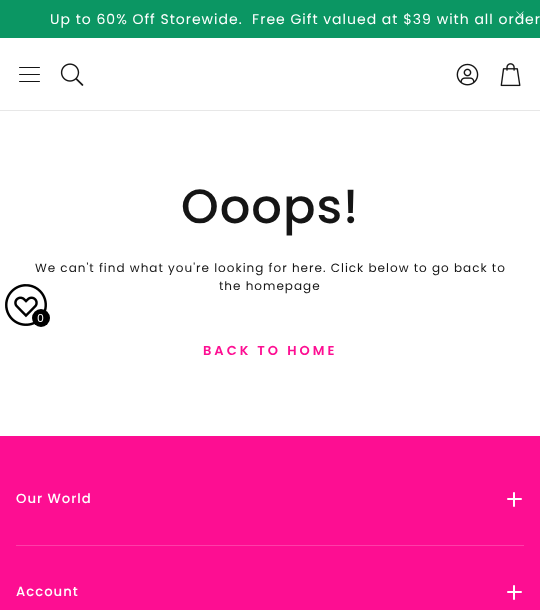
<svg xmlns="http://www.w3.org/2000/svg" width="540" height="610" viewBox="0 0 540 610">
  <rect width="100%" height="100%" fill="#fff"/>
  <path d="M0 0h540v38H0z" fill="#0b9663"/>
  <path d="M0 110h540v1H0z" fill="#e7e7e7"/>
  <rect x="19" y="67" width="21" height="1" rx="0.5" fill="#151515"/>
  <rect x="19" y="74" width="21" height="1" rx="0.5" fill="#151515"/>
  <rect x="19" y="81" width="21" height="1" rx="0.5" fill="#151515"/>
  <image x="60" y="63" width="24" height="23" href="img/2.png"/>
  <image x="456" y="63" width="23" height="23" href="img/3.png"/>
  <image x="500" y="63" width="21" height="24" href="img/4.png"/>
  <image x="5" y="284" width="42" height="42" href="img/5.png"/>
  <circle cx="41" cy="318" r="9" fill="#000"/>
  <path d="M0 436h540v174H0z" fill="#fd0e92"/>
  <rect x="507" y="498" width="15" height="2" rx="1" fill="#fff"/>
  <rect x="513" y="492" width="2" height="15" rx="1" fill="#fff"/>
  <path d="M16 545h508v1H16z" fill="#fd3ea8"/>
  <rect x="507" y="591" width="15" height="2" rx="1" fill="#fff"/>
  <rect x="513" y="585" width="2" height="15" rx="1" fill="#fff"/>
  <text x="50" y="24" font-family="Poppins" font-size="14" letter-spacing="1" fill="#fff" xml:space="preserve">Up to 60% Off Storewide.  Free Gift valued at $39 with all order</text>
  <image x="516" y="11" width="8" height="8" href="img/1.png"/>
  <text x="181" y="223" font-family="Poppins" font-size="48" font-weight="500" letter-spacing="1" fill="#151515">Ooops!</text>
  <g font-family="Poppins" font-size="12" letter-spacing="1" fill="#151515">
    <text x="35" y="272">We can't find what you're looking for here. Click below to go back to</text>
    <text x="219" y="290">the homepage</text>
  </g>
  <text x="203" y="355" font-family="Poppins" font-size="13" font-weight="600" letter-spacing="3" fill="#fd0e92">BACK TO HOME</text>
  <text x="37" y="322" font-family="Poppins" font-size="11" letter-spacing="1" fill="#fff">0</text>
  <g font-family="Poppins" font-size="13.25" font-weight="500" letter-spacing="1" fill="#fff">
    <text x="16" y="503">Our World</text>
    <text x="16" y="596">Account</text>
  </g>
</svg>
